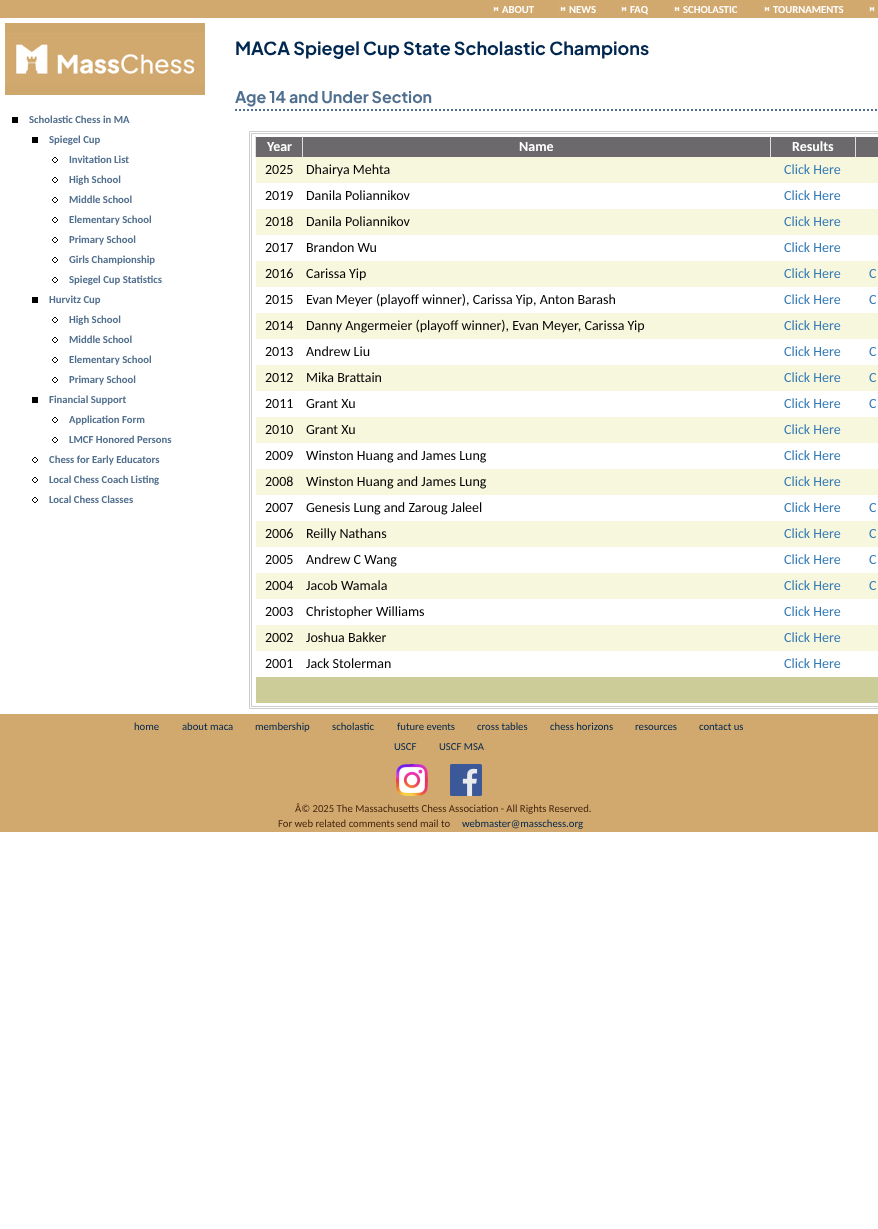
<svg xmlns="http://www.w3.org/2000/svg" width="878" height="1229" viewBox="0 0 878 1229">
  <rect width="100%" height="100%" fill="#fff"/>
  <path d="M0 0h878v18H0z" fill="#d1a86d"/>
  <image x="492" y="5" width="8" height="8" href="img/1.png"/>
  <image x="559" y="5" width="8" height="8" href="img/1.png"/>
  <image x="620" y="5" width="8" height="8" href="img/1.png"/>
  <image x="673" y="5" width="8" height="8" href="img/1.png"/>
  <image x="763" y="5" width="8" height="8" href="img/1.png"/>
  <image x="868" y="5" width="8" height="8" href="img/1.png"/>
  <image x="5" y="23" width="200" height="72" href="img/2.png"/>
  <path d="M12 117h6v6H12z" fill="#000"/>
  <path d="M32 137h6v6H32z" fill="#000"/>
  <image x="52" y="157" width="6" height="6" href="img/3.png"/>
  <image x="52" y="177" width="6" height="6" href="img/3.png"/>
  <image x="52" y="197" width="6" height="6" href="img/3.png"/>
  <image x="52" y="217" width="6" height="6" href="img/3.png"/>
  <image x="52" y="237" width="6" height="6" href="img/3.png"/>
  <image x="52" y="257" width="6" height="6" href="img/3.png"/>
  <image x="52" y="277" width="6" height="6" href="img/3.png"/>
  <path d="M32 297h6v6H32z" fill="#000"/>
  <image x="52" y="317" width="6" height="6" href="img/3.png"/>
  <image x="52" y="337" width="6" height="6" href="img/3.png"/>
  <image x="52" y="357" width="6" height="6" href="img/3.png"/>
  <image x="52" y="377" width="6" height="6" href="img/3.png"/>
  <path d="M32 397h6v6H32z" fill="#000"/>
  <image x="52" y="417" width="6" height="6" href="img/3.png"/>
  <image x="52" y="437" width="6" height="6" href="img/3.png"/>
  <image x="32" y="457" width="6" height="6" href="img/3.png"/>
  <image x="32" y="477" width="6" height="6" href="img/3.png"/>
  <image x="32" y="497" width="6" height="6" href="img/3.png"/>
  <path d="M235 110H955" fill="none" stroke="#516f8e" stroke-width="2" stroke-dasharray="2 2"/>
  <path d="M249.5 131.5h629v577H249.5z" fill="none" stroke="#cdcdcd"/>
  <path d="M251.5 133.5h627v573H251.5z" fill="none" stroke="#cdcdcd"/>
  <path d="M256 137h622v20H256z" fill="#6b696b"/>
  <path d="M255 136h1v21H255z" fill="#dedfde"/>
  <path d="M302 136h1v21H302z" fill="#dedfde"/>
  <path d="M770 136h1v21H770z" fill="#dedfde"/>
  <path d="M855 136h1v21H855z" fill="#dedfde"/>
  <path d="M256 157h622v26H256z" fill="#f7f7de"/>
  <path d="M256 209h622v26H256z" fill="#f7f7de"/>
  <path d="M256 261h622v26H256z" fill="#f7f7de"/>
  <path d="M256 313h622v26H256z" fill="#f7f7de"/>
  <path d="M256 365h622v26H256z" fill="#f7f7de"/>
  <path d="M256 417h622v26H256z" fill="#f7f7de"/>
  <path d="M256 469h622v26H256z" fill="#f7f7de"/>
  <path d="M256 521h622v26H256z" fill="#f7f7de"/>
  <path d="M256 573h622v26H256z" fill="#f7f7de"/>
  <path d="M256 625h622v26H256z" fill="#f7f7de"/>
  <path d="M256 677h622v26H256z" fill="#cc9"/>
  <path d="M0 714h878v118H0z" fill="#d1a86d"/>
  <image x="396" y="764" width="32" height="32" href="img/4.png"/>
  <image x="450" y="764" width="32" height="32" href="img/5.png"/>
  <g font-family="Carlito" font-size="10.7" font-weight="bold" fill="#fff">
    <text x="502" y="13">ABOUT</text>
    <text x="569" y="13">NEWS</text>
    <text x="630" y="13">FAQ</text>
    <text x="683" y="13">SCHOLASTIC</text>
    <text x="773" y="13">TOURNAMENTS</text>
  </g>
  <g font-family="Carlito" font-size="10.7" font-weight="bold" fill="#516f8e">
    <text x="29" y="123">Scholastic Chess in MA</text>
    <text x="49" y="143">Spiegel Cup</text>
    <text x="69" y="163">Invitation List</text>
    <text x="69" y="183">High School</text>
    <text x="69" y="203">Middle School</text>
    <text x="69" y="223">Elementary School</text>
    <text x="69" y="243">Primary School</text>
    <text x="69" y="263">Girls Championship</text>
    <text x="69" y="283">Spiegel Cup Statistics</text>
    <text x="49" y="303">Hurvitz Cup</text>
    <text x="69" y="323">High School</text>
    <text x="69" y="343">Middle School</text>
    <text x="69" y="363">Elementary School</text>
    <text x="69" y="383">Primary School</text>
    <text x="49" y="403">Financial Support</text>
    <text x="69" y="423">Application Form</text>
    <text x="69" y="443">LMCF Honored Persons</text>
    <text x="49" y="463">Chess for Early Educators</text>
    <text x="49" y="483">Local Chess Coach Listing</text>
    <text x="49" y="503">Local Chess Classes</text>
  </g>
  <text x="235" y="55" font-family="Plus Jakarta Sans" font-size="18" font-weight="bold" fill="#00274f">MACA Spiegel Cup State Scholastic Champions</text>
  <text x="235" y="103" font-family="Plus Jakarta Sans" font-size="16" font-weight="bold" fill="#516f8e">Age 14 and Under Section</text>
  <g font-family="Carlito" font-size="14" font-weight="bold" fill="#fff">
    <text x="267" y="151">Year</text>
    <text x="519" y="151">Name</text>
    <text x="792" y="151">Results</text>
  </g>
  <g font-family="Carlito" font-size="14" fill="#000">
    <text x="265" y="174">2025</text>
    <text x="306" y="174">Dhairya Mehta</text>
  </g>
  <text x="784" y="174" font-family="Carlito" font-size="14" fill="#337ab7">Click Here</text>
  <g font-family="Carlito" font-size="14" fill="#000">
    <text x="265" y="200">2019</text>
    <text x="306" y="200">Danila Poliannikov</text>
  </g>
  <text x="784" y="200" font-family="Carlito" font-size="14" fill="#337ab7">Click Here</text>
  <g font-family="Carlito" font-size="14" fill="#000">
    <text x="265" y="226">2018</text>
    <text x="306" y="226">Danila Poliannikov</text>
  </g>
  <text x="784" y="226" font-family="Carlito" font-size="14" fill="#337ab7">Click Here</text>
  <g font-family="Carlito" font-size="14" fill="#000">
    <text x="265" y="252">2017</text>
    <text x="306" y="252">Brandon Wu</text>
  </g>
  <text x="784" y="252" font-family="Carlito" font-size="14" fill="#337ab7">Click Here</text>
  <g font-family="Carlito" font-size="14" fill="#000">
    <text x="265" y="278">2016</text>
    <text x="306" y="278">Carissa Yip</text>
  </g>
  <g font-family="Carlito" font-size="14" fill="#337ab7">
    <text x="784" y="278">Click Here</text>
    <text x="869" y="278">C</text>
  </g>
  <g font-family="Carlito" font-size="14" fill="#000">
    <text x="265" y="304">2015</text>
    <text x="306" y="304">Evan Meyer (playoff winner), Carissa Yip, Anton Barash</text>
  </g>
  <g font-family="Carlito" font-size="14" fill="#337ab7">
    <text x="784" y="304">Click Here</text>
    <text x="869" y="304">C</text>
  </g>
  <g font-family="Carlito" font-size="14" fill="#000">
    <text x="265" y="330">2014</text>
    <text x="306" y="330">Danny Angermeier (playoff winner), Evan Meyer, Carissa Yip</text>
  </g>
  <text x="784" y="330" font-family="Carlito" font-size="14" fill="#337ab7">Click Here</text>
  <g font-family="Carlito" font-size="14" fill="#000">
    <text x="265" y="356">2013</text>
    <text x="306" y="356">Andrew Liu</text>
  </g>
  <g font-family="Carlito" font-size="14" fill="#337ab7">
    <text x="784" y="356">Click Here</text>
    <text x="869" y="356">C</text>
  </g>
  <g font-family="Carlito" font-size="14" fill="#000">
    <text x="265" y="382">2012</text>
    <text x="306" y="382">Mika Brattain</text>
  </g>
  <g font-family="Carlito" font-size="14" fill="#337ab7">
    <text x="784" y="382">Click Here</text>
    <text x="869" y="382">C</text>
  </g>
  <g font-family="Carlito" font-size="14" fill="#000">
    <text x="265" y="408">2011</text>
    <text x="306" y="408">Grant Xu</text>
  </g>
  <g font-family="Carlito" font-size="14" fill="#337ab7">
    <text x="784" y="408">Click Here</text>
    <text x="869" y="408">C</text>
  </g>
  <g font-family="Carlito" font-size="14" fill="#000">
    <text x="265" y="434">2010</text>
    <text x="306" y="434">Grant Xu</text>
  </g>
  <text x="784" y="434" font-family="Carlito" font-size="14" fill="#337ab7">Click Here</text>
  <g font-family="Carlito" font-size="14" fill="#000">
    <text x="265" y="460">2009</text>
    <text x="306" y="460">Winston Huang and James Lung</text>
  </g>
  <text x="784" y="460" font-family="Carlito" font-size="14" fill="#337ab7">Click Here</text>
  <g font-family="Carlito" font-size="14" fill="#000">
    <text x="265" y="486">2008</text>
    <text x="306" y="486">Winston Huang and James Lung</text>
  </g>
  <text x="784" y="486" font-family="Carlito" font-size="14" fill="#337ab7">Click Here</text>
  <g font-family="Carlito" font-size="14" fill="#000">
    <text x="265" y="512">2007</text>
    <text x="306" y="512">Genesis Lung and Zaroug Jaleel</text>
  </g>
  <g font-family="Carlito" font-size="14" fill="#337ab7">
    <text x="784" y="512">Click Here</text>
    <text x="869" y="512">C</text>
  </g>
  <g font-family="Carlito" font-size="14" fill="#000">
    <text x="265" y="538">2006</text>
    <text x="306" y="538">Reilly Nathans</text>
  </g>
  <g font-family="Carlito" font-size="14" fill="#337ab7">
    <text x="784" y="538">Click Here</text>
    <text x="869" y="538">C</text>
  </g>
  <g font-family="Carlito" font-size="14" fill="#000">
    <text x="265" y="564">2005</text>
    <text x="306" y="564">Andrew C Wang</text>
  </g>
  <g font-family="Carlito" font-size="14" fill="#337ab7">
    <text x="784" y="564">Click Here</text>
    <text x="869" y="564">C</text>
  </g>
  <g font-family="Carlito" font-size="14" fill="#000">
    <text x="265" y="590">2004</text>
    <text x="306" y="590">Jacob Wamala</text>
  </g>
  <g font-family="Carlito" font-size="14" fill="#337ab7">
    <text x="784" y="590">Click Here</text>
    <text x="869" y="590">C</text>
  </g>
  <g font-family="Carlito" font-size="14" fill="#000">
    <text x="265" y="616">2003</text>
    <text x="306" y="616">Christopher Williams</text>
  </g>
  <text x="784" y="616" font-family="Carlito" font-size="14" fill="#337ab7">Click Here</text>
  <g font-family="Carlito" font-size="14" fill="#000">
    <text x="265" y="642">2002</text>
    <text x="306" y="642">Joshua Bakker</text>
  </g>
  <text x="784" y="642" font-family="Carlito" font-size="14" fill="#337ab7">Click Here</text>
  <g font-family="Carlito" font-size="14" fill="#000">
    <text x="265" y="668">2001</text>
    <text x="306" y="668">Jack Stolerman</text>
  </g>
  <text x="784" y="668" font-family="Carlito" font-size="14" fill="#337ab7">Click Here</text>
  <g font-family="Carlito" font-size="10.7" fill="#00274f">
    <text x="134" y="730">home</text>
    <text x="182" y="730">about maca</text>
    <text x="255" y="730">membership</text>
    <text x="332" y="730">scholastic</text>
    <text x="397" y="730">future events</text>
    <text x="477" y="730">cross tables</text>
    <text x="550" y="730">chess horizons</text>
    <text x="635" y="730">resources</text>
    <text x="699" y="730">contact us</text>
    <text x="394" y="750">USCF</text>
    <text x="439" y="750">USCF MSA</text>
  </g>
  <g font-family="Carlito" font-size="10.7" fill="#482811">
    <text x="295" y="812">Â© 2025 The Massachusetts Chess Association - All Rights Reserved.</text>
    <text x="278" y="827">For web related comments send mail to</text>
  </g>
  <text x="462" y="827" font-family="Carlito" font-size="10.7" fill="#00274f">webmaster@masschess.org</text>
</svg>
